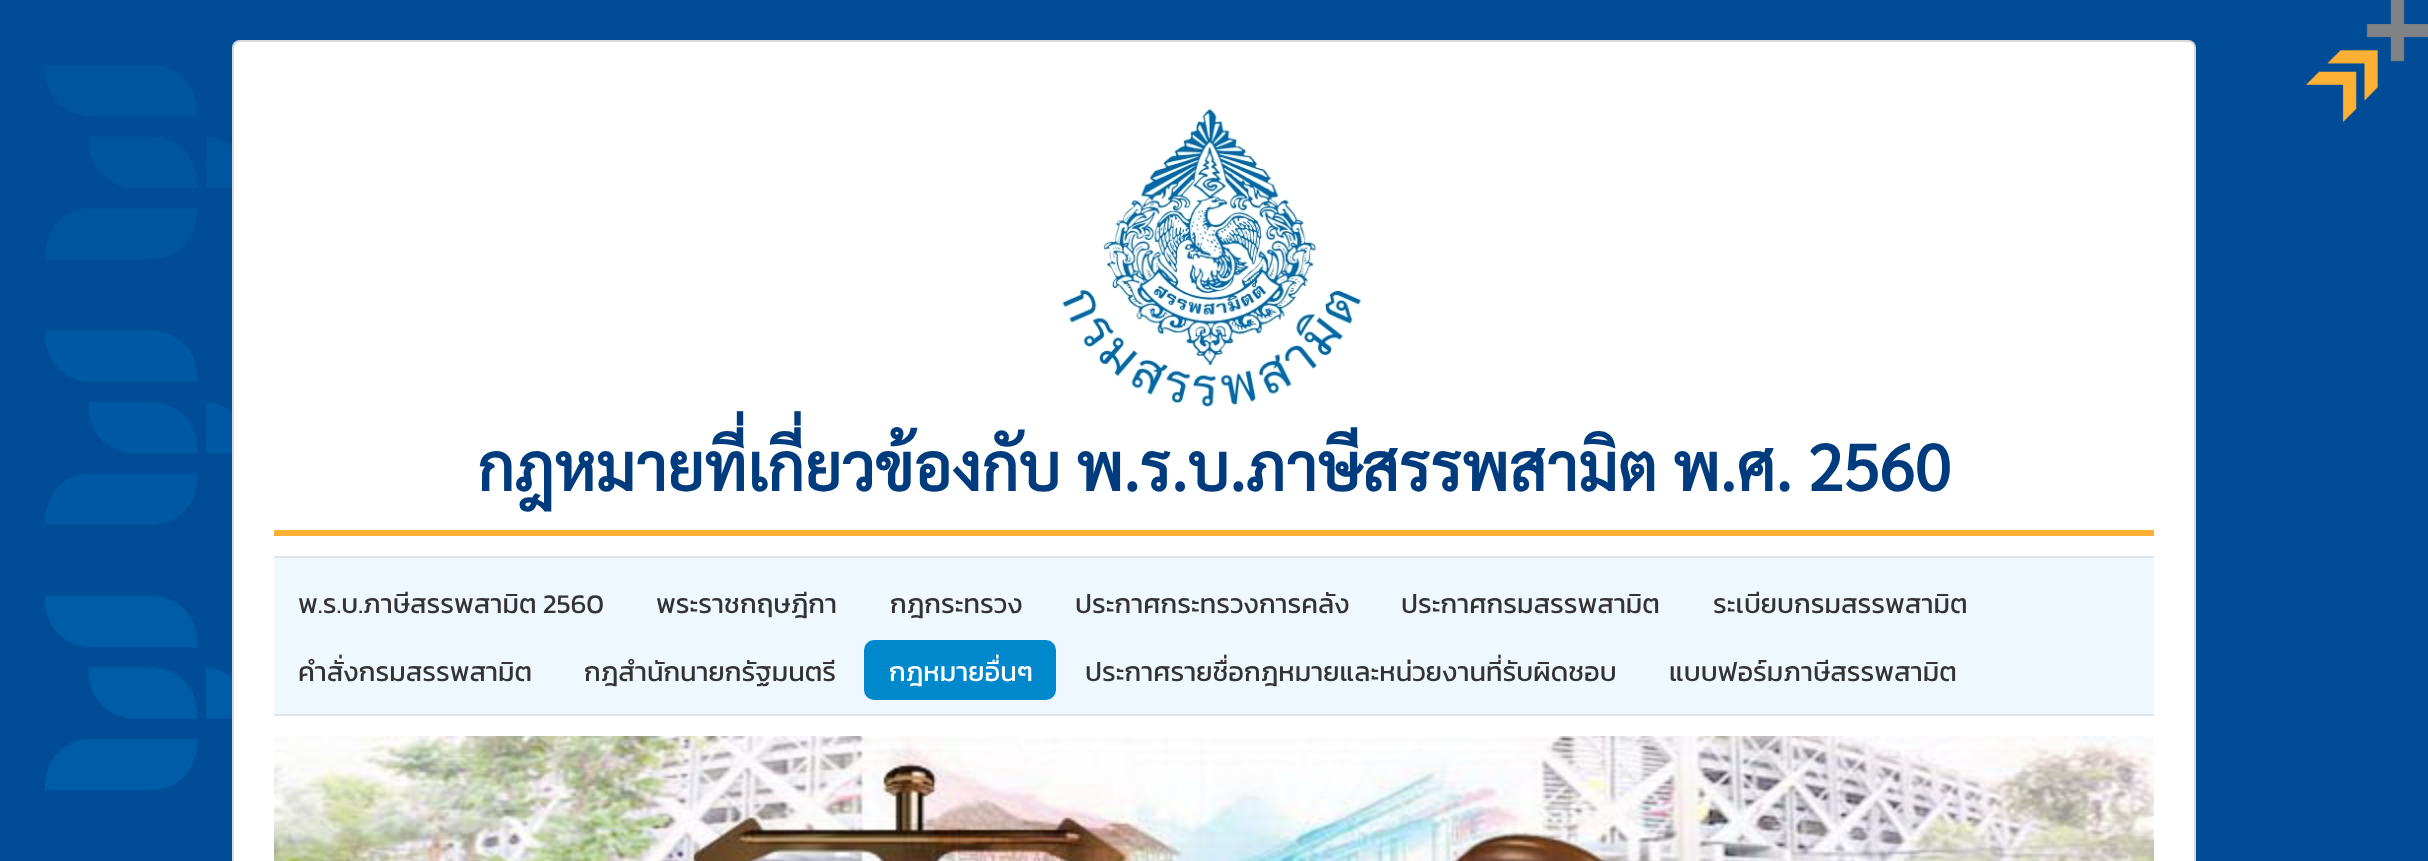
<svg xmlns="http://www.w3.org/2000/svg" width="2428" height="861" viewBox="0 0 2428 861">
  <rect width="100%" height="100%" fill="#004c97"/>
  <image x="44" y="65" width="188" height="726" href="img/1.png"/>
  <image x="2306" y="0" width="122" height="122" href="img/2.png"/>
  <rect x="232" y="40" width="1964" height="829" rx="8" fill="#fff"/>
  <rect x="233" y="41" width="1962" height="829" rx="7" fill="none" stroke="#00000026" stroke-width="2"/>
  <path d="M274 530h1880v6H274z" fill="#fbb034"/>
  <image x="1062" y="108" width="300" height="300" href="img/3.png"/>
  <path d="M274 558h1880v156H274z" fill="#f0f8ff"/>
  <path d="M274 556h1880v2H274z" fill="#dee5ec"/>
  <path d="M274 714h1880v2H274z" fill="#dee5ec"/>
  <rect x="864" y="640" width="192" height="60" rx="10" fill="#08c"/>
  <image x="274" y="736" width="1880" height="125" href="img/4.png"/>
  <text x="477" y="491" font-family="Sarabun" font-size="65" font-weight="bold" fill="#003b7d">กฎหมายที่เกี่ยวข้องกับ พ.ร.บ.ภาษีสรรพสามิต พ.ศ. 2560</text>
  <g font-family="Kanit" font-size="27.25" fill="#333">
    <text x="298" y="613">พ.ร.บ.ภาษีสรรพสามิต 2560</text>
    <text x="656" y="613">พระราชกฤษฎีกา</text>
    <text x="890" y="613">กฎกระทรวง</text>
    <text x="1075" y="613">ประกาศกระทรวงการคลัง</text>
    <text x="1401" y="613">ประกาศกรมสรรพสามิต</text>
    <text x="1713" y="613">ระเบียบกรมสรรพสามิต</text>
    <text x="298" y="681">คำสั่งกรมสรรพสามิต</text>
    <text x="584" y="681">กฎสํานักนายกรัฐมนตรี</text>
  </g>
  <text x="889" y="681" font-family="Kanit" font-size="27.25" fill="#fff">กฎหมายอื่นๆ</text>
  <g font-family="Kanit" font-size="27.25" fill="#333">
    <text x="1085" y="681">ประกาศรายชื่อกฎหมายและหน่วยงานที่รับผิดชอบ</text>
    <text x="1669" y="681">แบบฟอร์มภาษีสรรพสามิต</text>
  </g>
</svg>
